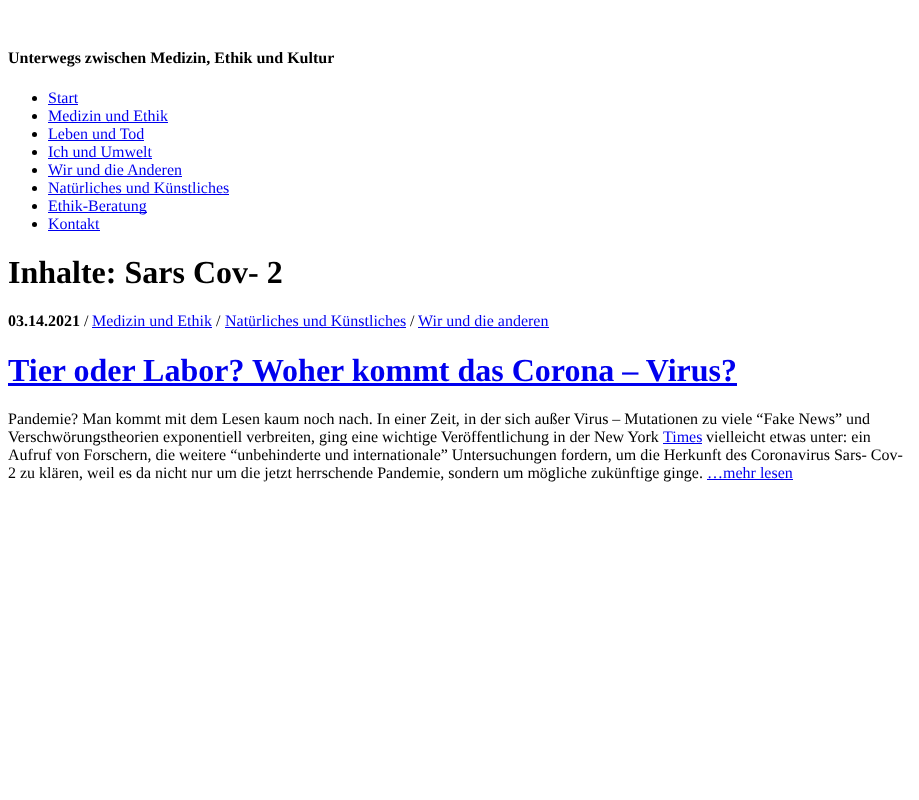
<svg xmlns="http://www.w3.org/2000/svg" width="919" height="800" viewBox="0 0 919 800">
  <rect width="100%" height="100%" fill="#fff"/>
  <circle cx="34.5" cy="98.5" r="2.5" fill="#000"/>
  <path d="M48 104h30v1H48z" fill="#00e"/>
  <circle cx="34.5" cy="116.5" r="2.5" fill="#000"/>
  <path d="M48 122h120v1H48z" fill="#00e"/>
  <circle cx="34.5" cy="134.5" r="2.5" fill="#000"/>
  <path d="M48 140h96v1H48z" fill="#00e"/>
  <circle cx="34.5" cy="152.5" r="2.5" fill="#000"/>
  <path d="M48 158h104v1H48z" fill="#00e"/>
  <circle cx="34.5" cy="170.5" r="2.5" fill="#000"/>
  <path d="M48 176h134v1H48z" fill="#00e"/>
  <circle cx="34.5" cy="188.5" r="2.5" fill="#000"/>
  <path d="M48 194h181v1H48z" fill="#00e"/>
  <circle cx="34.5" cy="206.5" r="2.5" fill="#000"/>
  <path d="M48 212h99v1H48z" fill="#00e"/>
  <circle cx="34.5" cy="224.5" r="2.5" fill="#000"/>
  <path d="M48 230h52v1H48z" fill="#00e"/>
  <path d="M92 327h120v1H92z" fill="#00e"/>
  <path d="M225 327h181v1H225z" fill="#00e"/>
  <path d="M418 327h131v1H418z" fill="#00e"/>
  <path d="M8 383h729v3H8z" fill="#00e"/>
  <path d="M663 443h39v1H663z" fill="#00e"/>
  <path d="M707 479h86v1H707z" fill="#00e"/>
  <text x="8" y="63" font-family="Liberation Serif" font-size="16" font-weight="bold" fill="#000">Unterwegs zwischen Medizin, Ethik und Kultur</text>
  <g font-family="Liberation Serif" font-size="16" fill="#00e">
    <text x="48" y="103">Start</text>
    <text x="48" y="121">Medizin und Ethik</text>
    <text x="48" y="139">Leben und Tod</text>
    <text x="48" y="157">Ich und Umwelt</text>
    <text x="48" y="175">Wir und die Anderen</text>
    <text x="48" y="193">Natürliches und Künstliches</text>
    <text x="48" y="211">Ethik-Beratung</text>
    <text x="48" y="229">Kontakt</text>
  </g>
  <text x="8" y="283" font-family="Liberation Serif" font-size="32" font-weight="bold" fill="#000">Inhalte: Sars Cov- 2</text>
  <text x="8" y="326" font-family="Liberation Serif" font-size="16" font-weight="bold" fill="#000">03.14.2021</text>
  <text x="84" y="326" font-family="Liberation Serif" font-size="16" fill="#000">/</text>
  <text x="92" y="326" font-family="Liberation Serif" font-size="16" fill="#00e">Medizin und Ethik</text>
  <text x="216" y="326" font-family="Liberation Serif" font-size="16" fill="#000">/</text>
  <text x="225" y="326" font-family="Liberation Serif" font-size="16" fill="#00e">Natürliches und Künstliches</text>
  <text x="410" y="326" font-family="Liberation Serif" font-size="16" fill="#000">/</text>
  <text x="418" y="326" font-family="Liberation Serif" font-size="16" fill="#00e">Wir und die anderen</text>
  <text x="8" y="381" font-family="Liberation Serif" font-size="32" font-weight="bold" fill="#00e">Tier oder Labor? Woher kommt das Corona – Virus?</text>
  <g font-family="Liberation Serif" font-size="16" fill="#000">
    <text x="8" y="424">Pandemie? Man kommt mit dem Lesen kaum noch nach. In einer Zeit, in der sich außer Virus – Mutationen zu viele “Fake News” und</text>
    <text x="8" y="442">Verschwörungstheorien exponentiell verbreiten, ging eine wichtige Veröffentlichung in der New York</text>
  </g>
  <text x="663" y="442" font-family="Liberation Serif" font-size="16" fill="#00e">Times</text>
  <g font-family="Liberation Serif" font-size="16" fill="#000">
    <text x="706" y="442">vielleicht etwas unter: ein</text>
    <text x="8" y="460">Aufruf von Forschern, die weitere “unbehinderte und internationale” Untersuchungen fordern, um die Herkunft des Coronavirus Sars- Cov-</text>
    <text x="8" y="478">2 zu klären, weil es da nicht nur um die jetzt herrschende Pandemie, sondern um mögliche zukünftige ginge.</text>
  </g>
  <text x="707" y="478" font-family="Liberation Serif" font-size="16" fill="#00e">…mehr lesen</text>
</svg>
